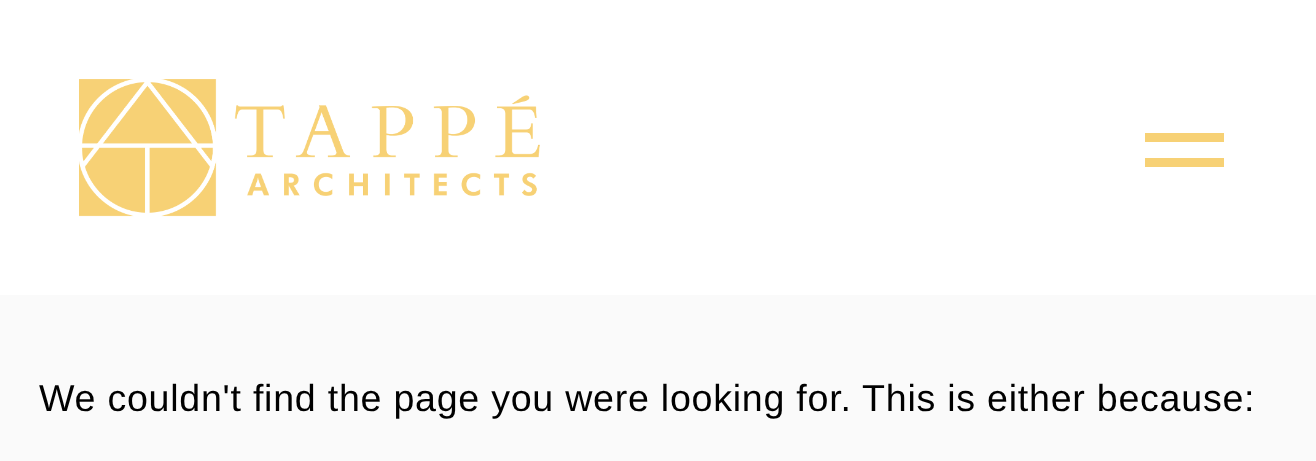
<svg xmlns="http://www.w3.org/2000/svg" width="1316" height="461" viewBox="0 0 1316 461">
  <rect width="100%" height="100%" fill="#fafafa"/>
  <path d="M0 0h1316v295H0z" fill="#fff"/>
  <image x="79" y="79" width="461" height="138" href="img/1.png"/>
  <path d="M1145 133h79v9H1145z" fill="#f7d175"/>
  <path d="M1145 158h79v9H1145z" fill="#f7d175"/>
  <text x="39" y="411" font-family="Liberation Sans" font-size="37.6" letter-spacing="0.75" fill="#000">We couldn't find the page you were looking for. This is either because:</text>
</svg>
